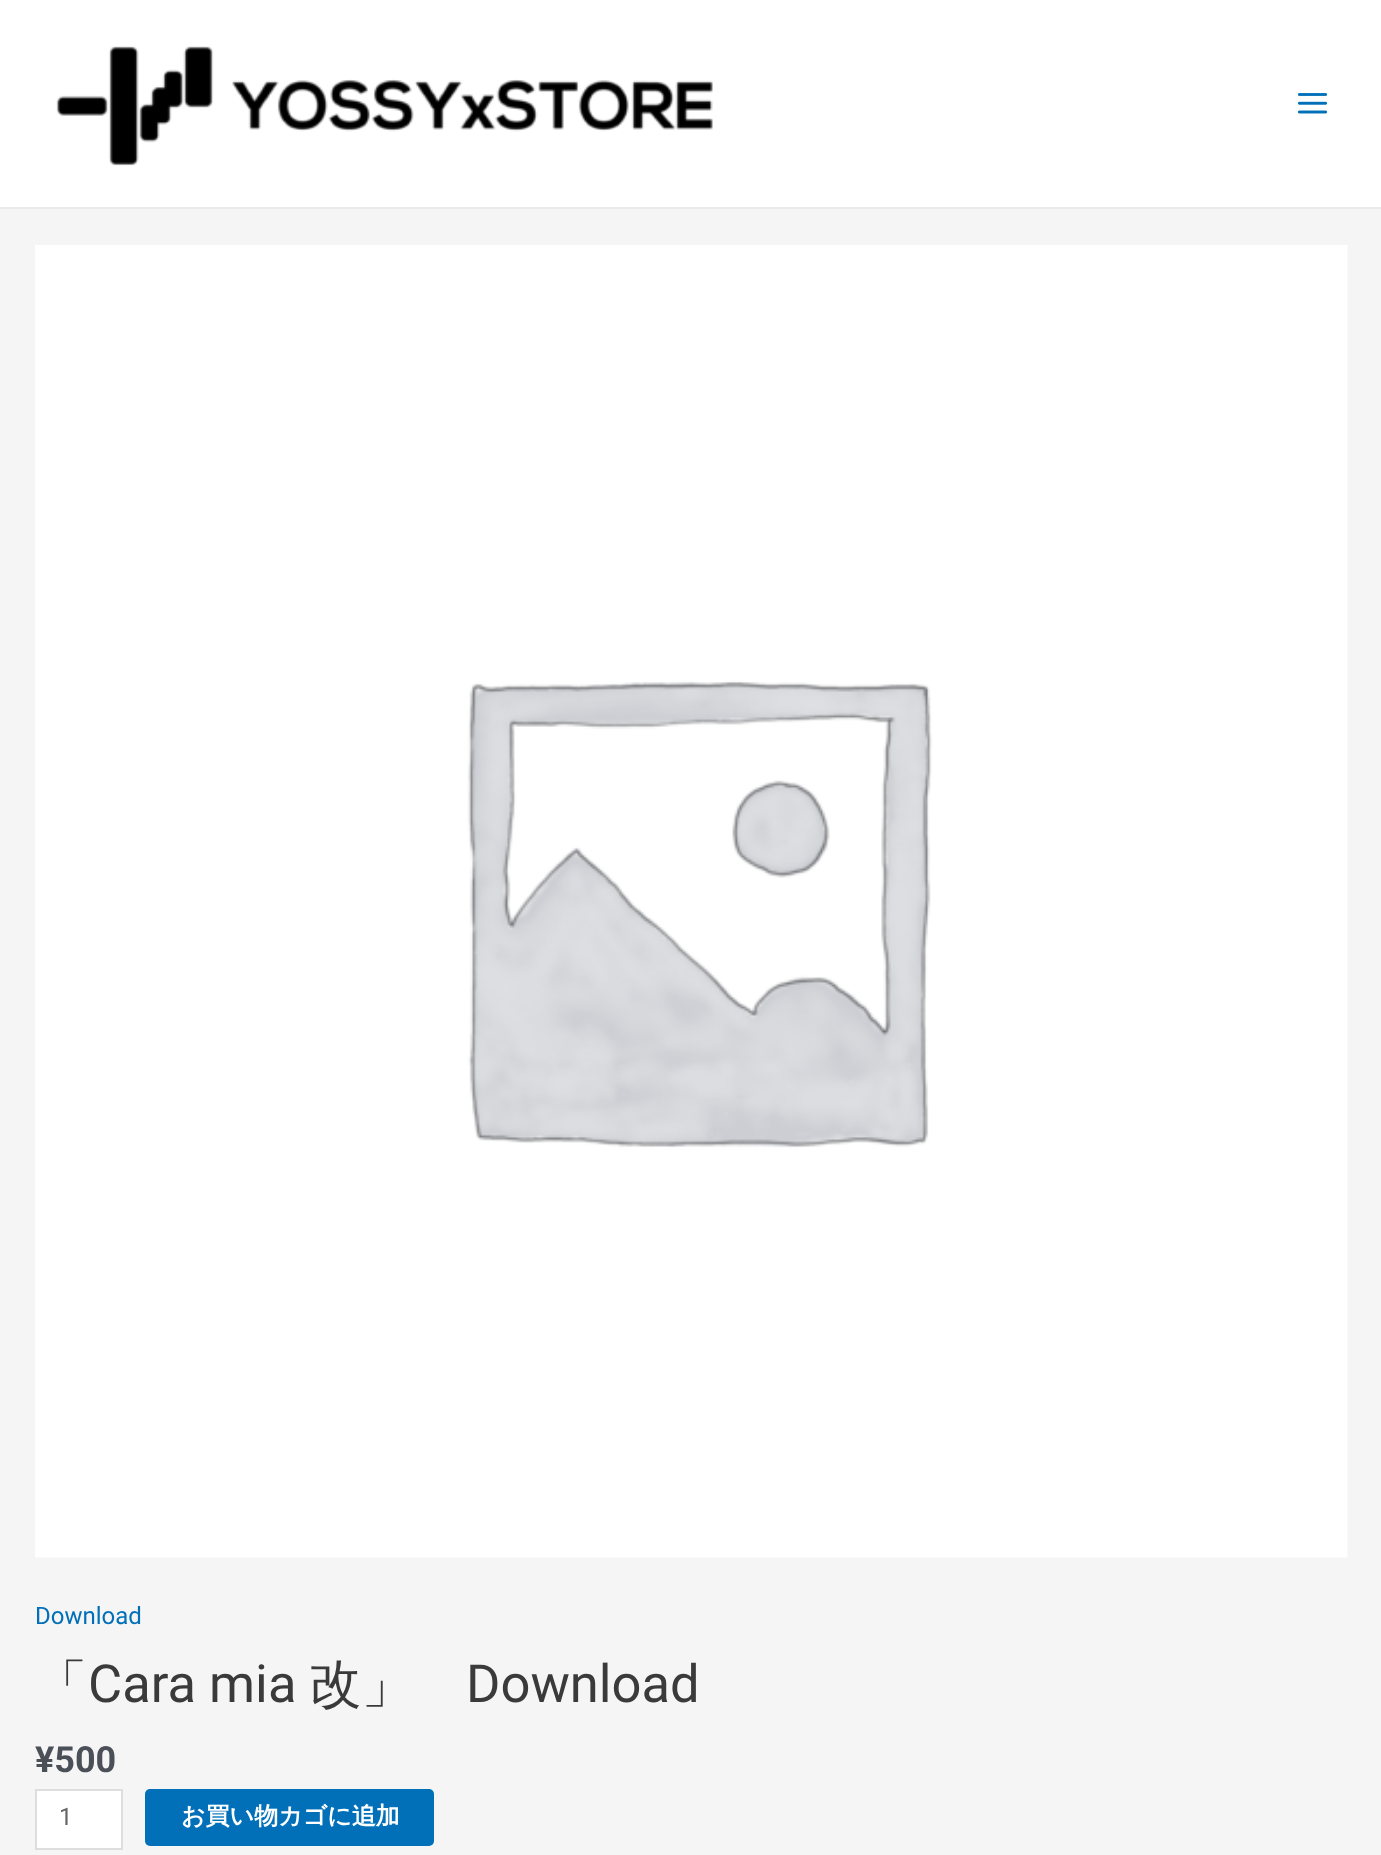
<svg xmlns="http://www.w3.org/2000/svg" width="1381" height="1855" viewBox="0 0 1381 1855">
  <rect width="100%" height="100%" fill="#f5f5f5"/>
  <path d="M0 0h1381v207H0z" fill="#fff"/>
  <path d="M0 207h1381v2H0z" fill="#eaeaea"/>
  <image x="56" y="46" width="657" height="120" href="img/1.png"/>
  <image x="1297" y="93" width="31" height="21" href="img/2.png"/>
  <image x="35" y="245" width="1313" height="1313" href="img/3.png"/>
  <path d="M36 1790h86v59H36z" fill="#fff" stroke="#ddd" stroke-width="2"/>
  <rect x="145" y="1789" width="289" height="57" rx="5" fill="#0170b9"/>
  <text x="35" y="1624" font-family="Roboto" font-size="24" fill="#0170b9">Download</text>
  <text x="35" y="1702" font-family="WenQuanYi Zen Hei" font-size="52.5" font-weight="500" fill="#3a3a3a">「</text>
  <text x="88" y="1702" font-family="Roboto" font-size="52.5" fill="#3a3a3a">Cara mia</text>
  <text x="309" y="1702" font-family="WenQuanYi Zen Hei" font-size="52.5" font-weight="500" fill="#3a3a3a">改」</text>
  <text x="466" y="1702" font-family="Roboto" font-size="52.5" fill="#3a3a3a">Download</text>
  <text x="35" y="1772" font-family="Roboto" font-size="36" font-weight="bold" fill="#4b4f58">¥500</text>
  <text x="59" y="1825" font-family="Roboto" font-size="24" fill="#666">1</text>
  <text x="181" y="1824" font-family="WenQuanYi Zen Hei" font-size="24" font-weight="bold" fill="#fff">お買い物カゴに追加</text>
</svg>
